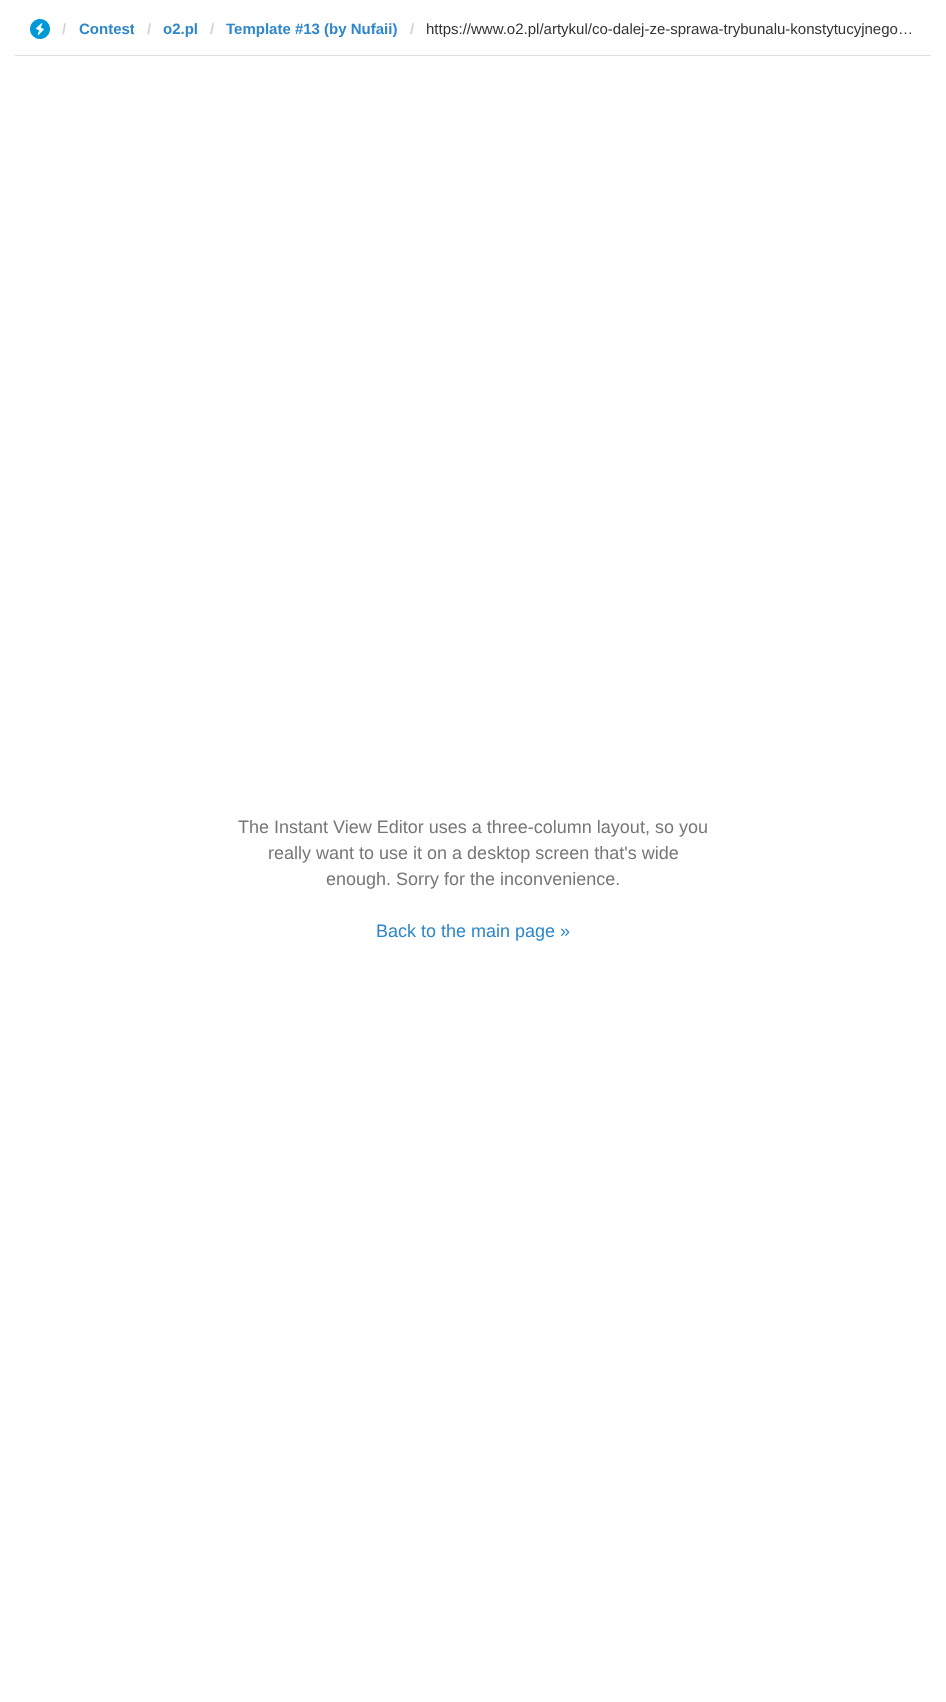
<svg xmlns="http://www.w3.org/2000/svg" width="946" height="1702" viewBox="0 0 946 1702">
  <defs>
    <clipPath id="clip1"><path d="M79 19h55v20H79z"/></clipPath>
  </defs>
  <rect width="100%" height="100%" fill="#fff"/>
  <path d="M15 55h916v1H15z" fill="#e0e0e0"/>
  <image x="30" y="19" width="20" height="20" href="img/1.png"/>
  <text x="62" y="34" font-family="Liberation Sans" font-size="15" font-weight="bold" fill="#d4d4d4">/</text>
  <g clip-path="url(#clip1)">
    <text x="79" y="34" font-family="Liberation Sans" font-size="15" font-weight="bold" fill="#2e87ca">Contest</text>
  </g>
  <text x="147" y="34" font-family="Liberation Sans" font-size="15" font-weight="bold" fill="#d4d4d4">/</text>
  <text x="163" y="34" font-family="Liberation Sans" font-size="15" font-weight="bold" fill="#2e87ca">o2.pl</text>
  <text x="210" y="34" font-family="Liberation Sans" font-size="15" font-weight="bold" fill="#d4d4d4">/</text>
  <text x="226" y="34" font-family="Liberation Sans" font-size="15" font-weight="bold" fill="#2e87ca">Template #13 (by Nufaii)</text>
  <text x="410" y="34" font-family="Liberation Sans" font-size="15" font-weight="bold" fill="#d4d4d4">/</text>
  <text x="426" y="34" font-family="Liberation Sans" font-size="15" fill="#333">https://www.o2.pl/artykul/co-dalej-ze-sprawa-trybunalu-konstytucyjnego…</text>
  <g font-family="Liberation Sans" font-size="18" fill="#777">
    <text x="238" y="833">The Instant View Editor uses a three-column layout, so you</text>
    <text x="268" y="859">really want to use it on a desktop screen that's wide</text>
    <text x="326" y="885">enough. Sorry for the inconvenience.</text>
  </g>
  <text x="376" y="937" font-family="Liberation Sans" font-size="18" fill="#2e87ca">Back to the main page »</text>
</svg>
